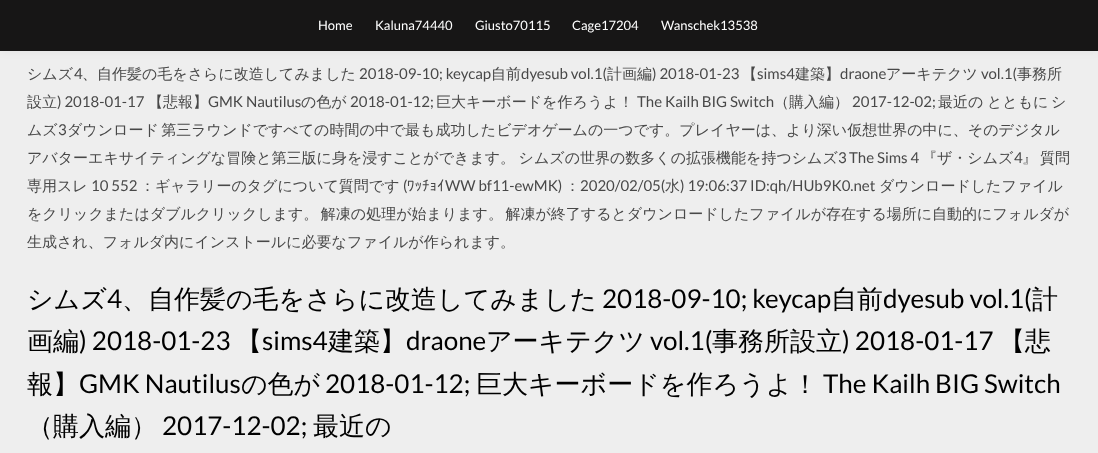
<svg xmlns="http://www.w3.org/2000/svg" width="1098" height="453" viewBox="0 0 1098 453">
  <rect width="100%" height="100%" fill="#eee"/>
  <path d="M0 0h1098v51H0z" fill="#0000000d" filter="blur(5px)"/>
  <path d="M0 0h1098v51H0z" fill="#171616"/>
  <g font-family="Lato" font-size="13" fill="#fff">
    <text x="318" y="30">Home</text>
    <text x="375" y="30">Kaluna74440</text>
    <text x="475" y="30">Giusto70115</text>
    <text x="572" y="30">Cage17204</text>
    <text x="661" y="30">Wanschek13538</text>
  </g>
  <text x="27" y="79" font-family="WenQuanYi Zen Hei" font-size="15" font-weight="500" fill="#484848">シムズ</text>
  <text x="74" y="79" font-family="Lato" font-size="15" fill="#484848">4</text>
  <text x="82" y="79" font-family="WenQuanYi Zen Hei" font-size="15" font-weight="500" fill="#484848">、自作髪の毛をさらに改造してみました</text>
  <text x="359" y="79" font-family="Lato" font-size="15" fill="#484848">2018-09-10; keycap</text>
  <text x="491" y="79" font-family="WenQuanYi Zen Hei" font-size="15" font-weight="500" fill="#484848">自前</text>
  <text x="521" y="79" font-family="Lato" font-size="15" fill="#484848">dyesub vol.1(</text>
  <text x="607" y="79" font-family="WenQuanYi Zen Hei" font-size="15" font-weight="500" fill="#484848">計画編</text>
  <text x="652" y="79" font-family="Lato" font-size="15" fill="#484848">) 2018-01-23</text>
  <text x="742" y="79" font-family="WenQuanYi Zen Hei" font-size="15" font-weight="500" fill="#484848">【</text>
  <text x="757" y="79" font-family="Lato" font-size="15" fill="#484848">sims4</text>
  <text x="795" y="79" font-family="WenQuanYi Zen Hei" font-size="15" font-weight="500" fill="#484848">建築】</text>
  <text x="840" y="79" font-family="Lato" font-size="15" fill="#484848">draone</text>
  <text x="886" y="79" font-family="WenQuanYi Zen Hei" font-size="15" font-weight="500" fill="#484848">アーキテクツ</text>
  <text x="981" y="79" font-family="Lato" font-size="15" fill="#484848">vol.1(</text>
  <g font-family="WenQuanYi Zen Hei" font-size="15" font-weight="500" fill="#484848">
    <text x="1017" y="79">事務所</text>
    <text x="27" y="107">設立</text>
  </g>
  <text x="57" y="107" font-family="Lato" font-size="15" fill="#484848">) 2018-01-17</text>
  <text x="148" y="107" font-family="WenQuanYi Zen Hei" font-size="15" font-weight="500" fill="#484848">【悲報】</text>
  <text x="208" y="107" font-family="Lato" font-size="15" fill="#484848">GMK Nautilus</text>
  <text x="301" y="107" font-family="WenQuanYi Zen Hei" font-size="15" font-weight="500" fill="#484848">の色が</text>
  <text x="350" y="107" font-family="Lato" font-size="15" fill="#484848">2018-01-12;</text>
  <text x="436" y="107" font-family="WenQuanYi Zen Hei" font-size="15" font-weight="500" fill="#484848">巨大キーボードを作ろうよ！</text>
  <text x="637" y="107" font-family="Lato" font-size="15" fill="#484848">The Kailh BIG Switch</text>
  <text x="774" y="107" font-family="WenQuanYi Zen Hei" font-size="15" font-weight="500" fill="#484848">（購入編）</text>
  <text x="852" y="107" font-family="Lato" font-size="15" fill="#484848">2017-12-02;</text>
  <g font-family="WenQuanYi Zen Hei" font-size="15" font-weight="500" fill="#484848">
    <text x="938" y="107">最近の</text>
    <text x="987" y="107" word-spacing="-2">とともに シ</text>
    <text x="27" y="135">ムズ</text>
  </g>
  <text x="58" y="135" font-family="Lato" font-size="15" fill="#484848">3</text>
  <g font-family="WenQuanYi Zen Hei" font-size="15" font-weight="500" fill="#484848">
    <text x="67" y="135" word-spacing="-2">ダウンロード 第三ラウンドですべての時間の中で最も成功したビデオゲームの一つです。プレイヤーは、より深い仮想世界の中に、そのデジタル</text>
    <text x="27" y="163" word-spacing="-1">アバターエキサイティングな冒険と第三版に身を浸すことができます。 シムズの世界の数多くの拡張機能を持つシムズ</text>
  </g>
  <g font-family="Lato" font-size="15" fill="#484848">
    <text x="838" y="163">3</text>
    <text x="849" y="163">The Sims 4</text>
  </g>
  <text x="922" y="163" font-family="WenQuanYi Zen Hei" font-size="15" font-weight="500" fill="#484848">『ザ・シムズ</text>
  <text x="1014" y="163" font-family="Lato" font-size="15" fill="#484848">4</text>
  <g font-family="WenQuanYi Zen Hei" font-size="15" font-weight="500" fill="#484848">
    <text x="1022" y="163">』</text>
    <text x="1040" y="163">質問</text>
    <text x="27" y="191">専用スレ</text>
  </g>
  <text x="91" y="191" font-family="Lato" font-size="15" fill="#484848">10 552</text>
  <text x="140" y="191" font-family="WenQuanYi Zen Hei" font-size="15" font-weight="500" fill="#484848">：ギャラリーのタグについて質問です</text>
  <text x="403" y="191" font-family="Lato" font-size="15" fill="#484848">(</text>
  <text x="407" y="191" font-family="IPAGothic" font-size="15" fill="#484848">ﾜｯﾁｮｲ</text>
  <text x="445" y="191" font-family="Lato" font-size="15" fill="#484848">WW bf11-ewMK)</text>
  <text x="565" y="191" font-family="WenQuanYi Zen Hei" font-size="15" font-weight="500" fill="#484848">：</text>
  <text x="580" y="191" font-family="Lato" font-size="15" fill="#484848">2020/02/05(</text>
  <text x="665" y="191" font-family="WenQuanYi Zen Hei" font-size="15" font-weight="500" fill="#484848">水</text>
  <text x="680" y="191" font-family="Lato" font-size="15" fill="#484848">) 19:06:37 ID:qh/HUb9K0.net</text>
  <g font-family="WenQuanYi Zen Hei" font-size="15" font-weight="500" fill="#484848">
    <text x="879" y="191">ダウンロードしたファイル</text>
    <text x="27" y="219" word-spacing="-2">をクリックまたはダブルクリックします。 解凍の処理が始まります。 解凍が終了するとダウンロードしたファイルが存在する場所に自動的にフォルダが</text>
    <text x="27" y="247">生成され、フォルダ内にインストールに必要なファイルが作られます。</text>
  </g>
  <text x="27" y="308" font-family="WenQuanYi Zen Hei" font-size="26" font-weight="500" fill="#000">シムズ</text>
  <text x="107" y="308" font-family="Lato" font-size="26" fill="#000">4</text>
  <text x="122" y="308" font-family="WenQuanYi Zen Hei" font-size="26" font-weight="500" fill="#000">、自作髪の毛をさらに改造してみました</text>
  <text x="602" y="308" font-family="Lato" font-size="26" fill="#000">2018-09-10; keycap</text>
  <text x="831" y="308" font-family="WenQuanYi Zen Hei" font-size="26" font-weight="500" fill="#000">自前</text>
  <text x="883" y="308" font-family="Lato" font-size="26" fill="#000">dyesub vol.1(</text>
  <g font-family="WenQuanYi Zen Hei" font-size="26" font-weight="500" fill="#000">
    <text x="1032" y="308">計</text>
    <text x="27" y="350">画編</text>
  </g>
  <text x="79" y="350" font-family="Lato" font-size="26" fill="#000">) 2018-01-23</text>
  <text x="236" y="350" font-family="WenQuanYi Zen Hei" font-size="26" font-weight="500" fill="#000">【</text>
  <text x="262" y="350" font-family="Lato" font-size="26" fill="#000">sims4</text>
  <text x="328" y="350" font-family="WenQuanYi Zen Hei" font-size="26" font-weight="500" fill="#000">建築】</text>
  <text x="406" y="350" font-family="Lato" font-size="26" fill="#000">draone</text>
  <text x="486" y="350" font-family="WenQuanYi Zen Hei" font-size="26" font-weight="500" fill="#000">アーキテクツ</text>
  <text x="650" y="350" font-family="Lato" font-size="26" fill="#000">vol.1(</text>
  <text x="712" y="350" font-family="WenQuanYi Zen Hei" font-size="26" font-weight="500" fill="#000">事務所設立</text>
  <text x="842" y="350" font-family="Lato" font-size="26" fill="#000">) 2018-01-17</text>
  <g font-family="WenQuanYi Zen Hei" font-size="26" font-weight="500" fill="#000">
    <text x="999" y="350">【悲</text>
    <text x="27" y="393">報】</text>
  </g>
  <text x="79" y="393" font-family="Lato" font-size="26" fill="#000">GMK Nautilus</text>
  <text x="241" y="393" font-family="WenQuanYi Zen Hei" font-size="26" font-weight="500" fill="#000">の色が</text>
  <text x="325" y="393" font-family="Lato" font-size="26" fill="#000">2018-01-12;</text>
  <text x="476" y="393" font-family="WenQuanYi Zen Hei" font-size="26" font-weight="500" fill="#000">巨大キーボードを作ろうよ！</text>
  <text x="823" y="393" font-family="Lato" font-size="26" fill="#000">The Kailh BIG Switch</text>
  <text x="27" y="435" font-family="WenQuanYi Zen Hei" font-size="26" font-weight="500" fill="#000">（購入編）</text>
  <text x="162" y="435" font-family="Lato" font-size="26" fill="#000">2017-12-02;</text>
  <text x="313" y="435" font-family="WenQuanYi Zen Hei" font-size="26" font-weight="500" fill="#000">最近の</text>
</svg>
